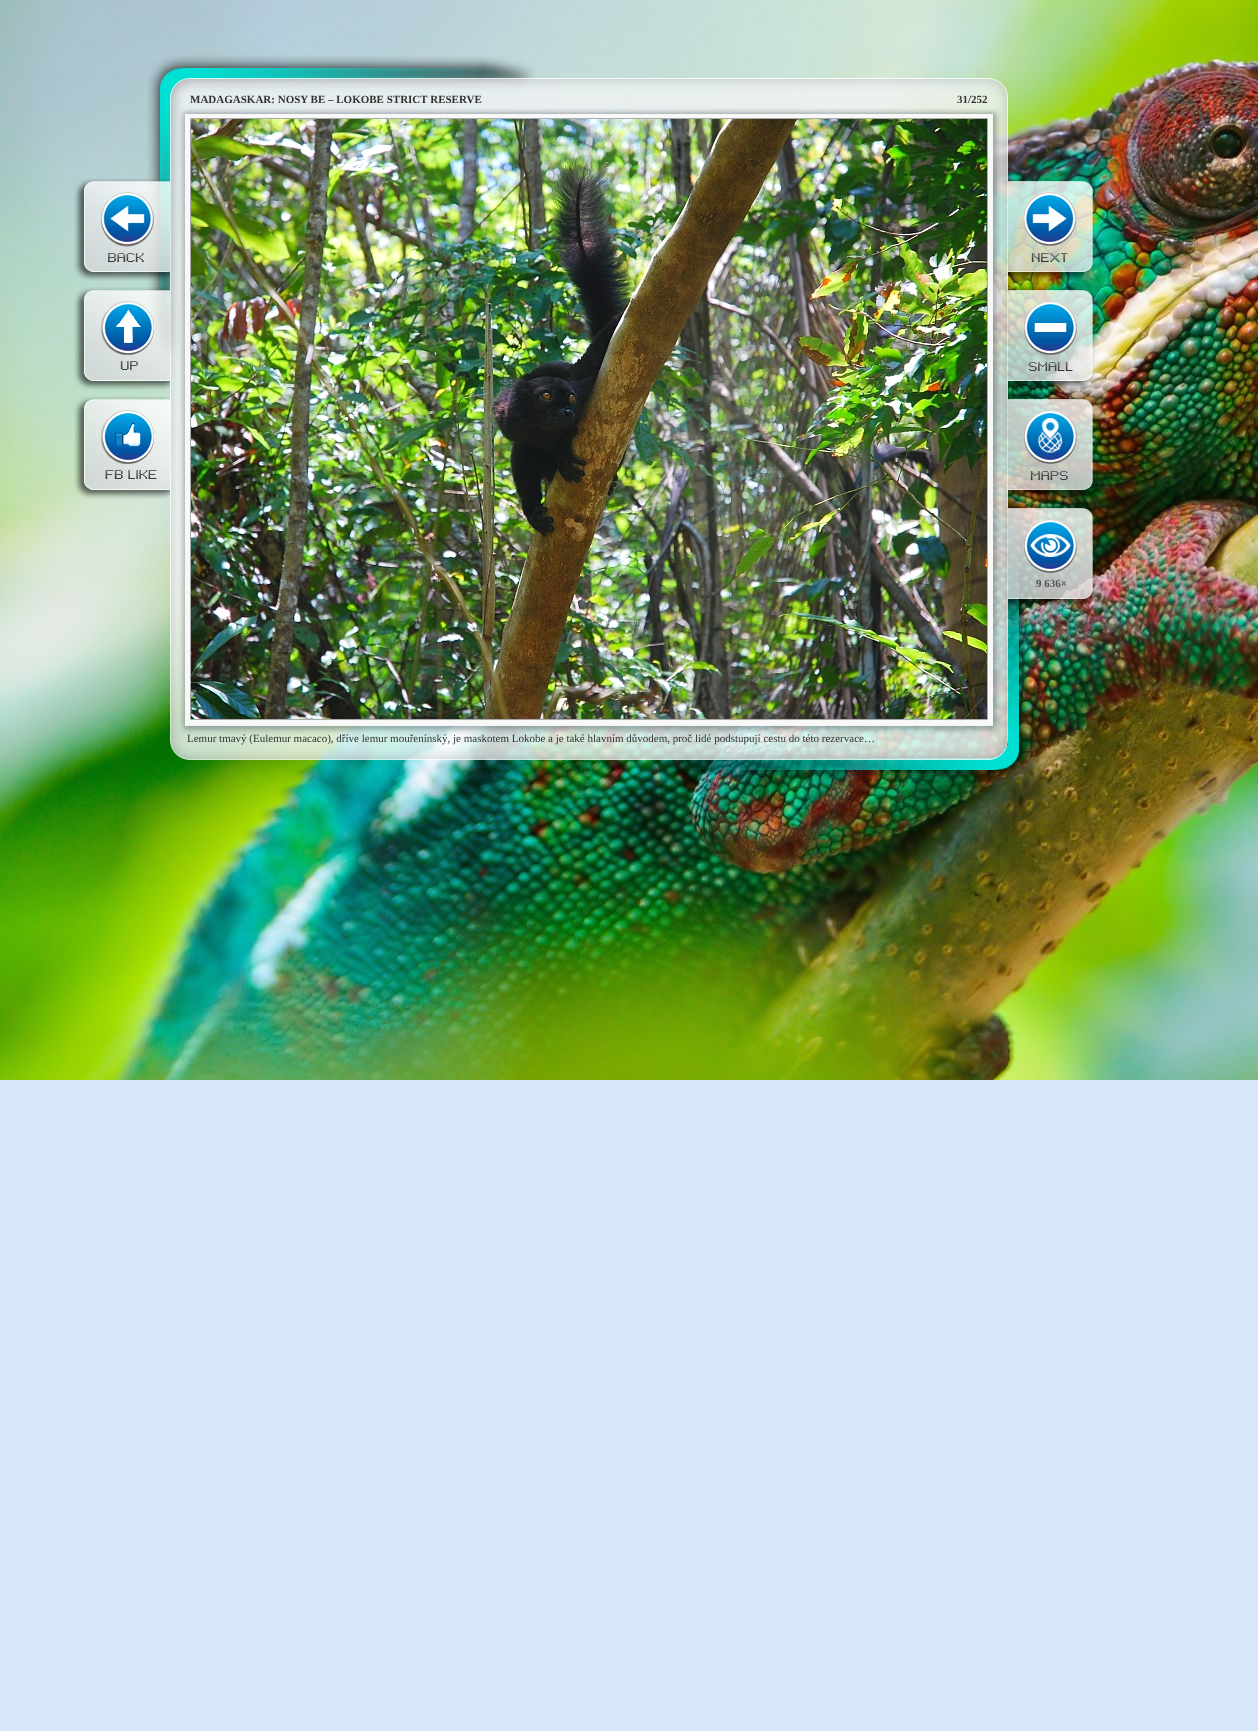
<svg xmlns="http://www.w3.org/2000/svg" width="1258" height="1731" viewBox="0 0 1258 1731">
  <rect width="100%" height="100%" fill="#d7e7f7"/>
  <image x="0" y="0" width="1258" height="1080" href="img/1.png"/>
  <image x="150" y="55" width="386" height="23" href="img/2.png"/>
  <image x="147" y="78" width="23" height="282" href="img/3.png"/>
  <image x="74" y="178" width="96" height="103" href="img/4.png"/>
  <image x="101" y="192" width="53" height="70" href="img/5.png"/>
  <image x="74" y="287" width="96" height="103" href="img/6.png"/>
  <image x="101" y="301" width="53" height="69" href="img/7.png"/>
  <image x="74" y="396" width="96" height="103" href="img/8.png"/>
  <image x="101" y="410" width="56" height="69" href="img/9.png"/>
  <image x="170" y="78" width="838" height="682" href="img/10.png"/>
  <image x="191" y="119" width="796" height="600" href="img/11.png"/>
  <path d="M190.5 118.5h797v601H190.5z" fill="none" stroke="#aaa"/>
  <image x="1008" y="478" width="24" height="282" href="img/12.png"/>
  <image x="1008" y="178" width="87" height="103" href="img/13.png"/>
  <image x="1008" y="287" width="87" height="103" href="img/14.png"/>
  <image x="1008" y="396" width="87" height="103" href="img/15.png"/>
  <image x="1008" y="505" width="87" height="103" href="img/16.png"/>
  <image x="643" y="760" width="384" height="22" href="img/17.png"/>
  <g font-family="Liberation Serif" font-size="11" font-weight="bold" fill="#333">
    <text x="190" y="103">MADAGASKAR: NOSY BE – LOKOBE STRICT RESERVE</text>
    <text x="957" y="103">31/252</text>
  </g>
  <text x="187" y="742" font-family="Liberation Serif" font-size="11" fill="#333">Lemur tmavý (Eulemur macaco), dříve lemur mouřenínský, je maskotem Lokobe a je také hlavním důvodem, proč lidé podstupují cestu do této rezervace…</text>
  <text x="1036" y="587" font-family="Liberation Serif" font-size="11" font-weight="bold" fill="#555">9 636×</text>
</svg>
